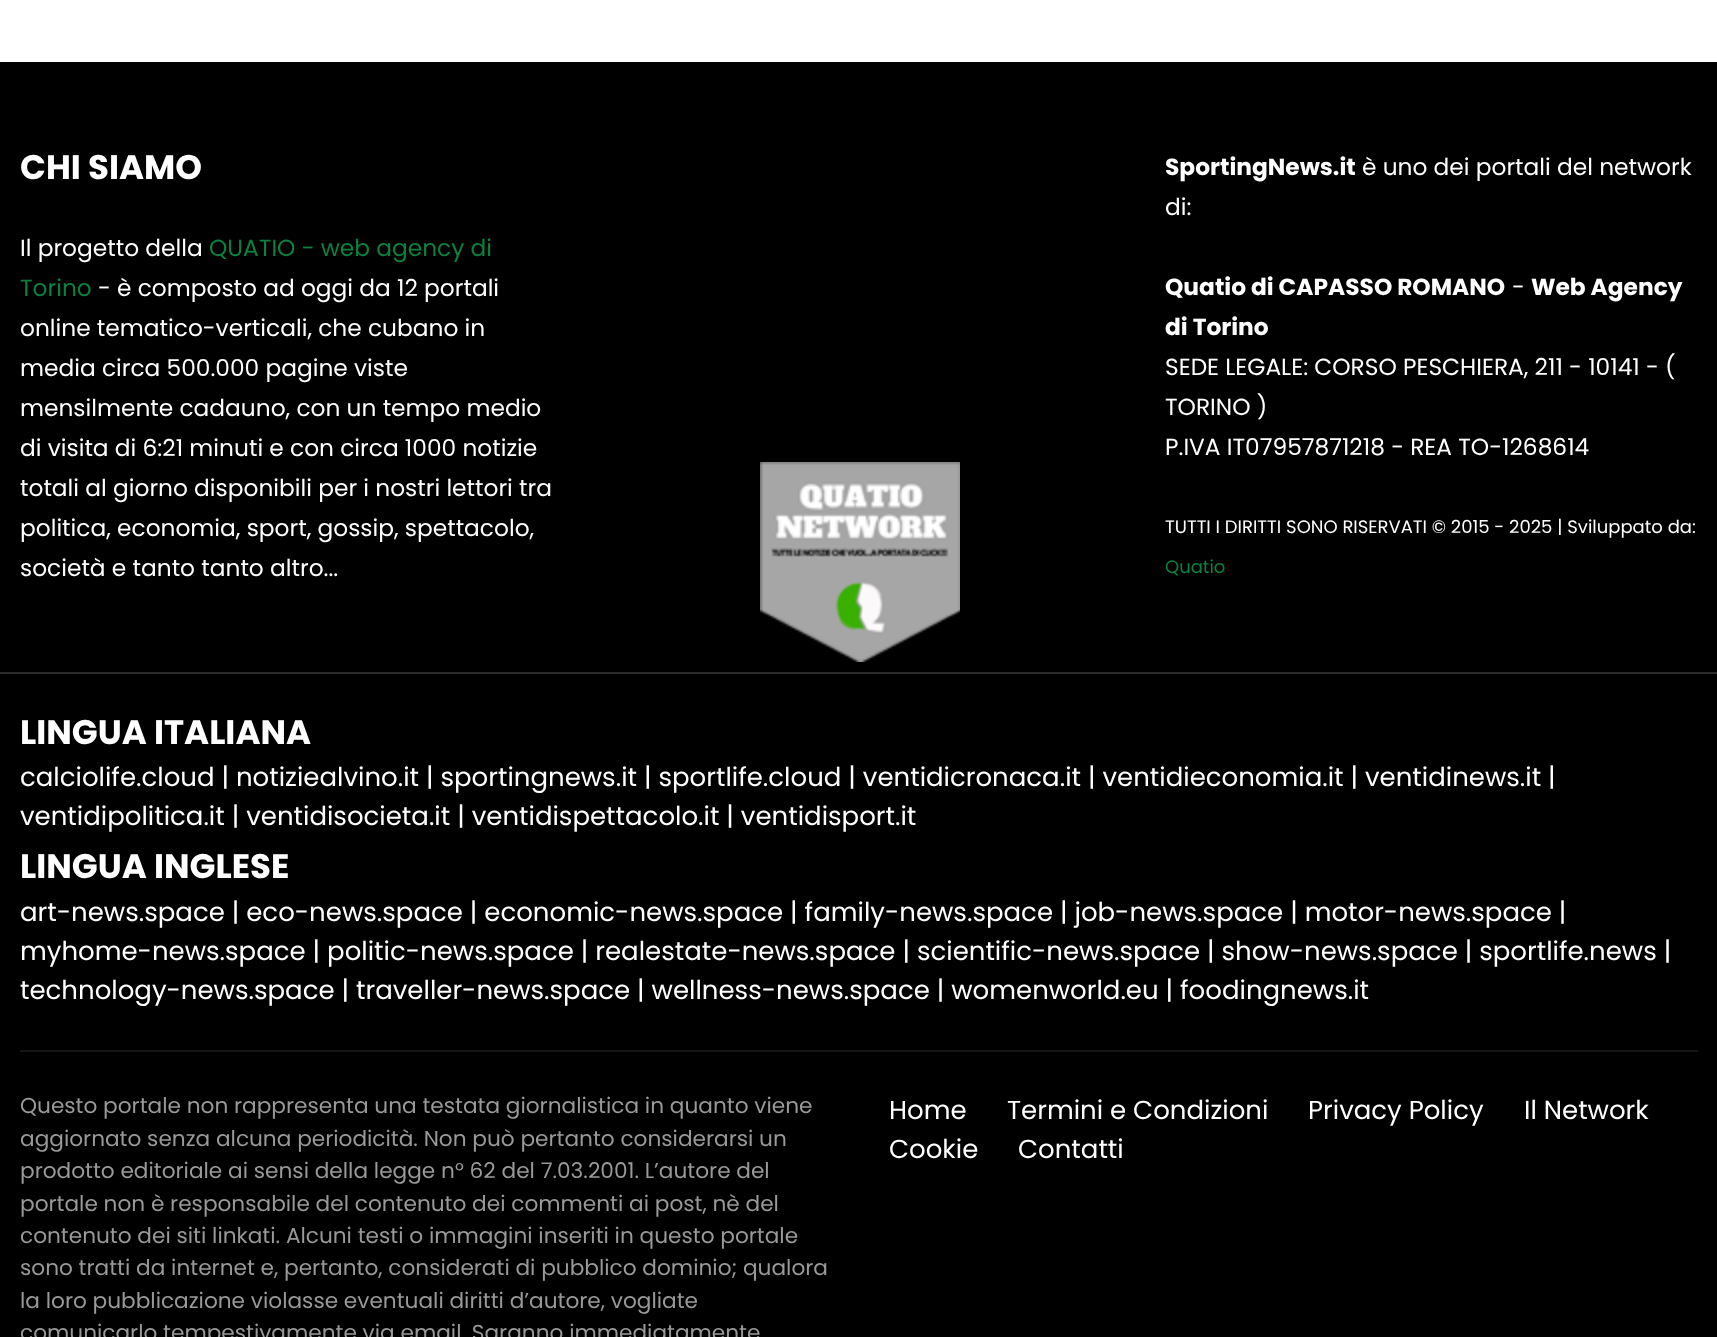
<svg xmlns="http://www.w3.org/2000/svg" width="1717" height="1337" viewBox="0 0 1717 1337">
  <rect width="100%" height="100%" fill="#fff"/>
  <path d="M0 62h1717v610H0z" fill="#000"/>
  <path d="M0 672h1717v2H0z" fill="#2b2b2b"/>
  <path d="M0 674h1717v663H0z" fill="#000"/>
  <image x="760" y="462" width="200" height="200" href="img/1.png"/>
  <path d="M20 1050h1678v2H20z" fill="#151515"/>
  <text x="20" y="179" font-family="Poppins" font-size="34" font-weight="bold" fill="#fff">CHI SIAMO</text>
  <text x="20" y="256" font-family="Poppins" font-size="23.3" fill="#fff">Il progetto della</text>
  <g font-family="Poppins" font-size="23.3" fill="#0a813e">
    <text x="209" y="256">QUATIO - web agency di</text>
    <text x="20" y="296">Torino</text>
  </g>
  <g font-family="Poppins" font-size="23.3" fill="#fff">
    <text x="98" y="296">- è composto ad oggi da 12 portali</text>
    <text x="20" y="336">online tematico-verticali, che cubano in</text>
    <text x="20" y="376">media circa 500.000 pagine viste</text>
    <text x="20" y="416">mensilmente cadauno, con un tempo medio</text>
    <text x="20" y="456">di visita di 6:21 minuti e con circa 1000 notizie</text>
    <text x="20" y="496">totali al giorno disponibili per i nostri lettori tra</text>
    <text x="20" y="536">politica, economia, sport, gossip, spettacolo,</text>
    <text x="20" y="576">società e tanto tanto altro...</text>
  </g>
  <text x="1165" y="175" font-family="Poppins" font-size="23.3" font-weight="bold" fill="#fff">SportingNews.it</text>
  <g font-family="Poppins" font-size="23.3" fill="#fff">
    <text x="1362" y="175">è uno dei portali del network</text>
    <text x="1165" y="215">di:</text>
  </g>
  <text x="1165" y="295" font-family="Poppins" font-size="23.3" font-weight="bold" fill="#fff">Quatio di CAPASSO ROMANO</text>
  <text x="1512" y="295" font-family="Poppins" font-size="23.3" fill="#fff">-</text>
  <g font-family="Poppins" font-size="23.3" font-weight="bold" fill="#fff">
    <text x="1531" y="295">Web Agency</text>
    <text x="1165" y="335">di Torino</text>
  </g>
  <g font-family="Poppins" font-size="23.3" fill="#fff">
    <text x="1165" y="375">SEDE LEGALE: CORSO PESCHIERA, 211 - 10141 - (</text>
    <text x="1165" y="415">TORINO )</text>
    <text x="1165" y="455">P.IVA IT07957871218 - REA TO-1268614</text>
  </g>
  <text x="1165" y="533" font-family="Poppins" font-size="18" fill="#fff">TUTTI I DIRITTI SONO RISERVATI © 2015 - 2025 | Sviluppato da:</text>
  <text x="1165" y="573" font-family="Poppins" font-size="18" fill="#0a813e">Quatio</text>
  <text x="20" y="744" font-family="Poppins" font-size="34" font-weight="bold" fill="#fff">LINGUA ITALIANA</text>
  <g font-family="Poppins" font-size="26" fill="#fff">
    <text x="20" y="786">calciolife.cloud | notiziealvino.it | sportingnews.it | sportlife.cloud | ventidicronaca.it | ventidieconomia.it | ventidinews.it |</text>
    <text x="20" y="825">ventidipolitica.it | ventidisocieta.it | ventidispettacolo.it | ventidisport.it</text>
  </g>
  <text x="20" y="878" font-family="Poppins" font-size="34" font-weight="bold" fill="#fff">LINGUA INGLESE</text>
  <g font-family="Poppins" font-size="26" fill="#fff">
    <text x="20" y="921">art-news.space | eco-news.space | economic-news.space | family-news.space | job-news.space | motor-news.space |</text>
    <text x="20" y="960">myhome-news.space | politic-news.space | realestate-news.space | scientific-news.space | show-news.space | sportlife.news |</text>
    <text x="20" y="999">technology-news.space | traveller-news.space | wellness-news.space | womenworld.eu | foodingnews.it</text>
  </g>
  <g font-family="Poppins" font-size="21.65" fill="#999">
    <text x="20" y="1113">Questo portale non rappresenta una testata giornalistica in quanto viene</text>
    <text x="20" y="1146">aggiornato senza alcuna periodicità. Non può pertanto considerarsi un</text>
    <text x="20" y="1178">prodotto editoriale ai sensi della legge n° 62 del 7.03.2001. L’autore del</text>
    <text x="20" y="1211">portale non è responsabile del contenuto dei commenti ai post, nè del</text>
    <text x="20" y="1243">contenuto dei siti linkati. Alcuni testi o immagini inseriti in questo portale</text>
    <text x="20" y="1275">sono tratti da internet e, pertanto, considerati di pubblico dominio; qualora</text>
    <text x="20" y="1308">la loro pubblicazione violasse eventuali diritti d’autore, vogliate</text>
    <text x="20" y="1340">comunicarlo tempestivamente via email. Saranno immediatamente</text>
  </g>
  <g font-family="Poppins" font-size="26" fill="#fff">
    <text x="889" y="1119">Home</text>
    <text x="1007" y="1119">Termini e Condizioni</text>
    <text x="1308" y="1119">Privacy Policy</text>
    <text x="1524" y="1119">Il Network</text>
    <text x="889" y="1158">Cookie</text>
    <text x="1018" y="1158">Contatti</text>
  </g>
</svg>
